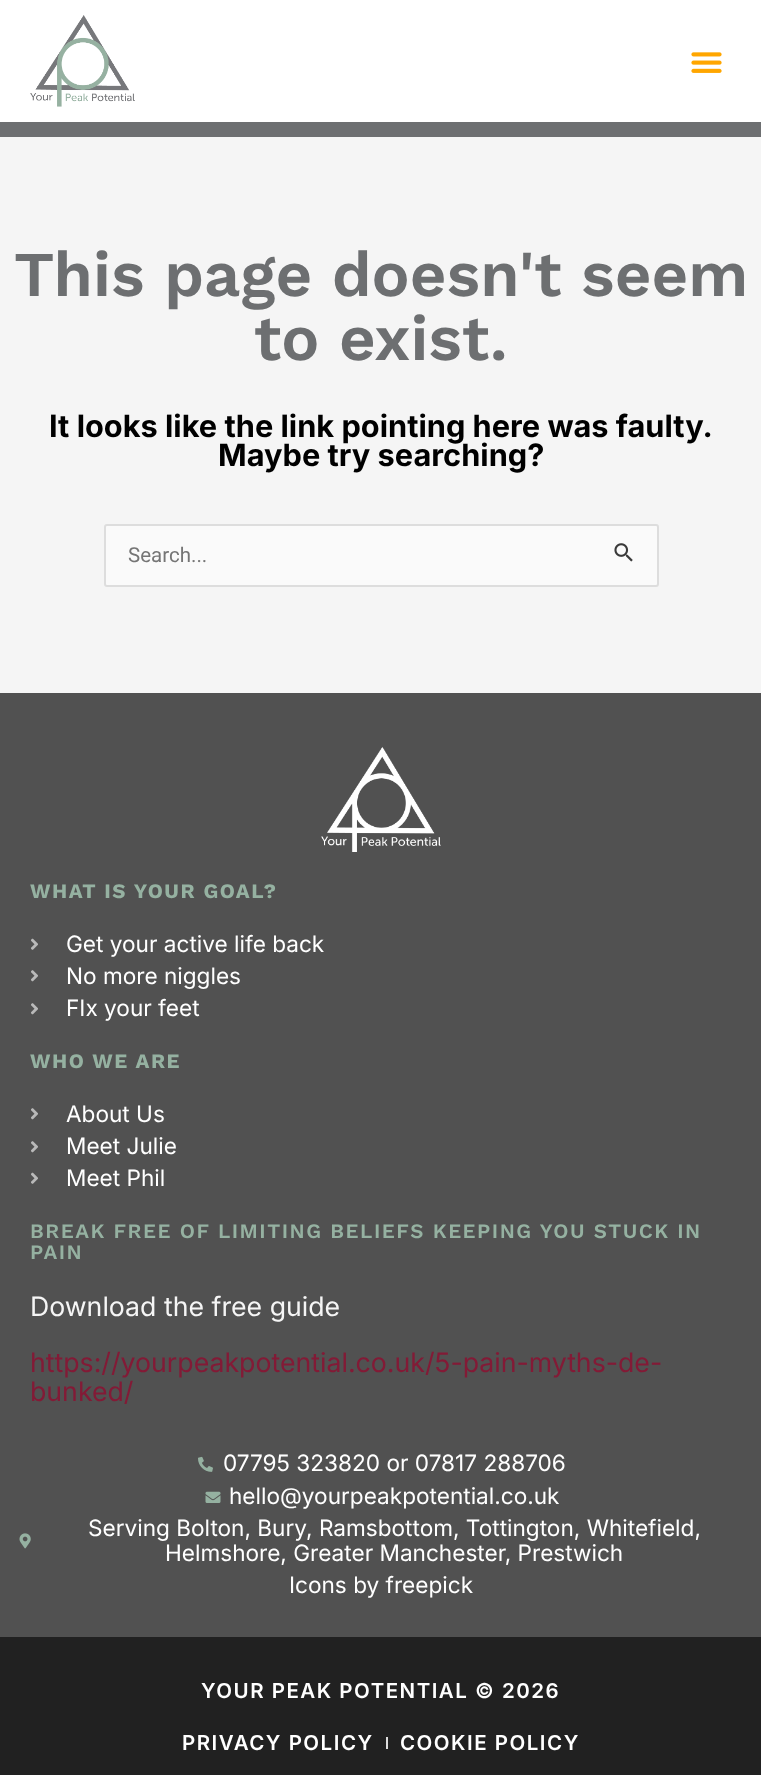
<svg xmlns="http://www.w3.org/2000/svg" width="761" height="1775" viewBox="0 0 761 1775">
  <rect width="100%" height="100%" fill="#f5f5f5"/>
  <path d="M0 122h761v15H0z" fill="#6d6f71"/>
  <path d="M0 0h761v122H0z" fill="#fff"/>
  <image x="30" y="15" width="105" height="92" href="img/1.png"/>
  <image x="691" y="52" width="31" height="21" href="img/2.png"/>
  <rect x="105" y="525" width="553" height="61" rx="2" fill="#fafafa" stroke="#ddd" stroke-width="2"/>
  <image x="614" y="543" width="19" height="19" href="img/3.png"/>
  <path d="M0 693h761v944H0z" fill="#515151"/>
  <image x="321" y="747" width="120" height="105" href="img/4.png"/>
  <image x="31" y="938" width="7" height="12" href="img/5.png"/>
  <image x="31" y="970" width="7" height="12" href="img/6.png"/>
  <image x="31" y="1003" width="7" height="12" href="img/6.png"/>
  <image x="31" y="1108" width="7" height="12" href="img/6.png"/>
  <image x="31" y="1141" width="7" height="12" href="img/6.png"/>
  <image x="31" y="1172" width="7" height="12" href="img/5.png"/>
  <image x="198" y="1456" width="15" height="16" href="img/7.png"/>
  <image x="205" y="1491" width="16" height="12" href="img/8.png"/>
  <image x="19" y="1533" width="12" height="16" href="img/9.png"/>
  <path d="M0 1637h761v138H0z" fill="#212121"/>
  <path d="M386 1737h2v12H386z" fill="#ddd"/>
  <g font-family="Work Sans" font-size="63.6" font-weight="600" fill="#6d6f71">
    <text x="14" y="296">This page doesn't seem</text>
    <text x="254" y="360">to exist.</text>
  </g>
  <g font-family="Inter" font-size="30.75" font-weight="bold" fill="#000">
    <text x="49" y="437">It looks like the link pointing here was faulty.</text>
    <text x="218" y="466">Maybe try searching?</text>
  </g>
  <text x="128" y="562" font-family="Roboto" font-size="20.5" fill="#757575">Search...</text>
  <text x="30" y="898" font-family="Work Sans" font-size="20.5" font-weight="bold" letter-spacing="1.5" fill="#95b1a1">WHAT IS YOUR GOAL?</text>
  <g font-family="Inter" font-size="22.6" fill="#fff">
    <text x="66" y="952">Get your active life back</text>
    <text x="66" y="984">No more niggles</text>
    <text x="66" y="1016">FIx your feet</text>
  </g>
  <text x="30" y="1068" font-family="Work Sans" font-size="20.5" font-weight="bold" letter-spacing="1.5" fill="#95b1a1">WHO WE ARE</text>
  <g font-family="Inter" font-size="22.6" fill="#fff">
    <text x="66" y="1122">About Us</text>
    <text x="66" y="1154">Meet Julie</text>
    <text x="66" y="1186">Meet Phil</text>
  </g>
  <g font-family="Work Sans" font-size="20.5" font-weight="600" letter-spacing="1.5" fill="#95b1a1">
    <text x="30" y="1238">BREAK FREE OF LIMITING BELIEFS KEEPING YOU STUCK IN</text>
    <text x="30" y="1259">PAIN</text>
  </g>
  <text x="30" y="1316" font-family="Inter" font-size="26.7" fill="#f5f5f5">Download the free guide</text>
  <g font-family="Inter" font-size="26.7" fill="#831a36">
    <text x="30" y="1372">https://yourpeakpotential.co.uk/5-pain-myths-de-</text>
    <text x="30" y="1401">bunked/</text>
  </g>
  <g font-family="Inter" font-size="22.6" fill="#fff">
    <text x="223" y="1471">07795 323820 or 07817 288706</text>
    <text x="229" y="1504">hello@yourpeakpotential.co.uk</text>
    <text x="88" y="1536">Serving Bolton, Bury, Ramsbottom, Tottington, Whitefield,</text>
    <text x="165" y="1561">Helmshore, Greater Manchester, Prestwich</text>
    <text x="289" y="1593">Icons by freepick</text>
  </g>
  <g font-family="Inter" font-size="20.5" font-weight="600" letter-spacing="1.5" fill="#fff">
    <text x="201" y="1698">YOUR PEAK POTENTIAL © 2026</text>
    <text x="182" y="1750">PRIVACY POLICY</text>
    <text x="400" y="1750">COOKIE POLICY</text>
  </g>
</svg>
